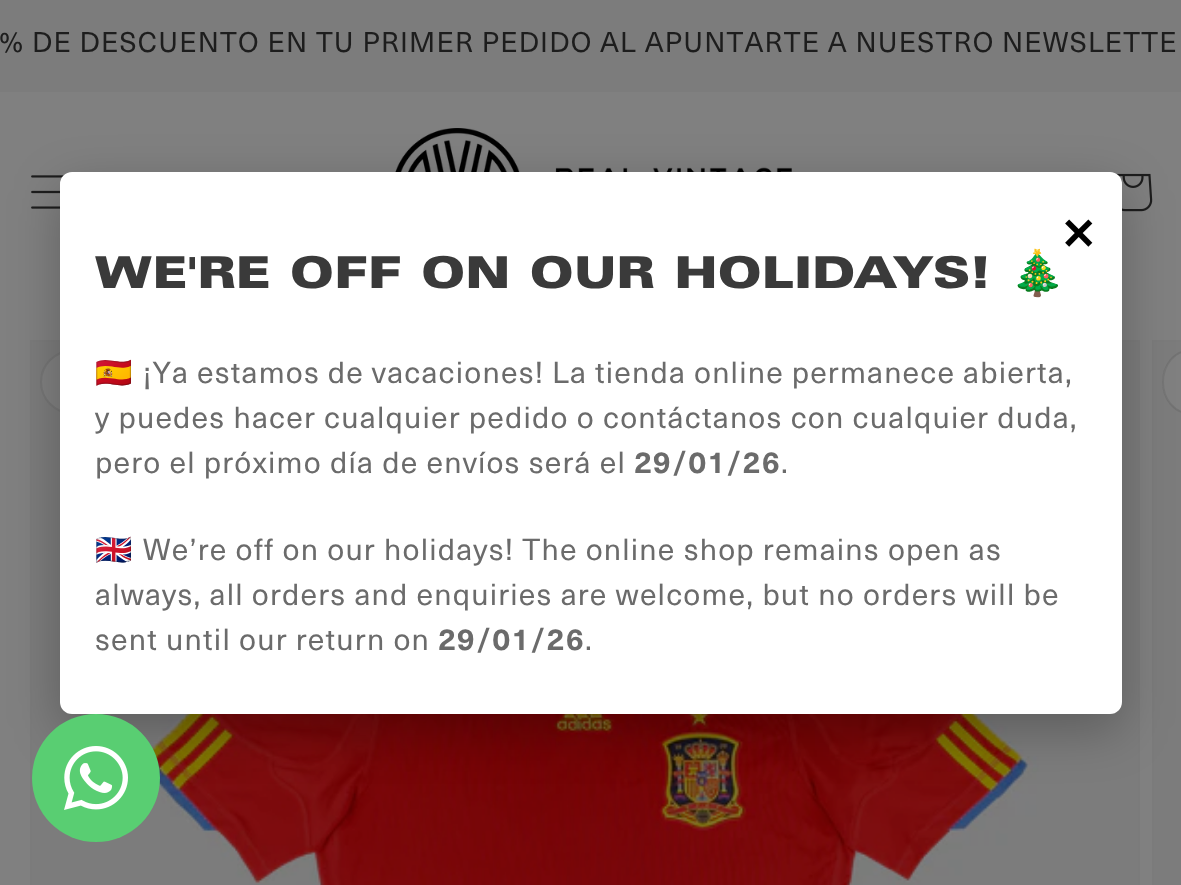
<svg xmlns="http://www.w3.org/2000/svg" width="1181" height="885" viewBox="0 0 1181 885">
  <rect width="100%" height="100%" fill="#808080"/>
  <path d="M0 0h1181v92H0z" fill="#7c7c7c"/>
  <image x="395" y="128" width="397" height="44" href="img/1.png"/>
  <image x="31" y="175" width="34" height="34" href="img/2.png"/>
  <image x="1116" y="173" width="37" height="39" href="img/3.png"/>
  <path d="M31 341h1108v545H31z" fill="none" stroke="#7b7b7b" stroke-width="2"/>
  <image x="32" y="342" width="1106" height="543" href="img/4.png"/>
  <circle cx="72" cy="382" r="32" fill="#808080"/>
  <circle cx="72" cy="382" r="31" fill="none" stroke="#1d1d1d1a" stroke-width="2"/>
  <path d="M1153 341h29v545H1153z" fill="none" stroke="#7b7b7b" stroke-width="2"/>
  <path d="M1154 342h27v543H1154z" fill="#7c7c7c"/>
  <path d="M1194 350H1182V414H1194C1176.5 414 1162 399.5 1162 382C1162 364.5 1176.5 350 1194 350Z" fill="#808080"/>
  <rect x="1163" y="351" width="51" height="62" rx="31" fill="none" stroke="#1d1d1d1a" stroke-width="2"/>
  <rect x="60" y="188" width="1062" height="542" rx="12" fill="#00000040" filter="blur(25px)"/>
  <rect x="60" y="172" width="1062" height="542" rx="12" fill="#fff"/>
  <circle cx="96" cy="778" r="64" fill="#59ce72"/>
  <image x="64" y="746" width="64" height="64" href="img/5.png"/>
  <text x="-1" y="52" font-family="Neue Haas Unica" font-size="28" letter-spacing="1.2" fill="#1d1d1d">% DE DESCUENTO EN TU PRIMER PEDIDO AL APUNTARTE A NUESTRO NEWSLETTE</text>
  <text x="1064" y="249" font-family="Neue Haas Unica" font-size="52" font-weight="bold" letter-spacing="1.2" fill="#000">×</text>
  <text x="95" y="288" font-family="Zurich" font-size="44" font-weight="800" letter-spacing="1.5" fill="#3a3a3a">WE'RE OFF ON OUR HOLIDAYS!</text>
  <text x="1010" y="288" font-family="Noto Color Emoji" font-size="44" letter-spacing="1.5" fill="#3a3a3a">🎄</text>
  <text x="95" y="383" font-family="Noto Color Emoji" font-size="30" letter-spacing="1.2" fill="#6b6b6b">🇪🇸</text>
  <g font-family="Neue Haas Unica" font-size="30" letter-spacing="1.2" fill="#6b6b6b">
    <text x="143" y="383" word-spacing="-0.25">¡Ya estamos de vacaciones! La tienda online permanece abierta,</text>
    <text x="95" y="428">y puedes hacer cualquier pedido o contáctanos con cualquier duda,</text>
    <text x="95" y="473">pero el próximo día de envíos será el</text>
  </g>
  <text x="634" y="473" font-family="Neue Haas Unica" font-size="30" font-weight="bold" letter-spacing="1.2" fill="#6b6b6b">29/01/26</text>
  <text x="781" y="473" font-family="Neue Haas Unica" font-size="30" letter-spacing="1.2" fill="#6b6b6b">.</text>
  <text x="95" y="560" font-family="Noto Color Emoji" font-size="30" letter-spacing="1.2" fill="#6b6b6b">🇬🇧</text>
  <g font-family="Neue Haas Unica" font-size="30" letter-spacing="1.2" fill="#6b6b6b">
    <text x="143" y="560">We’re off on our holidays! The online shop remains open as</text>
    <text x="95" y="605">always, all orders and enquiries are welcome, but no orders will be</text>
    <text x="95" y="650">sent until our return on</text>
  </g>
  <text x="438" y="650" font-family="Neue Haas Unica" font-size="30" font-weight="bold" letter-spacing="1.2" fill="#6b6b6b">29/01/26</text>
  <text x="585" y="650" font-family="Neue Haas Unica" font-size="30" letter-spacing="1.2" fill="#6b6b6b">.</text>
</svg>
